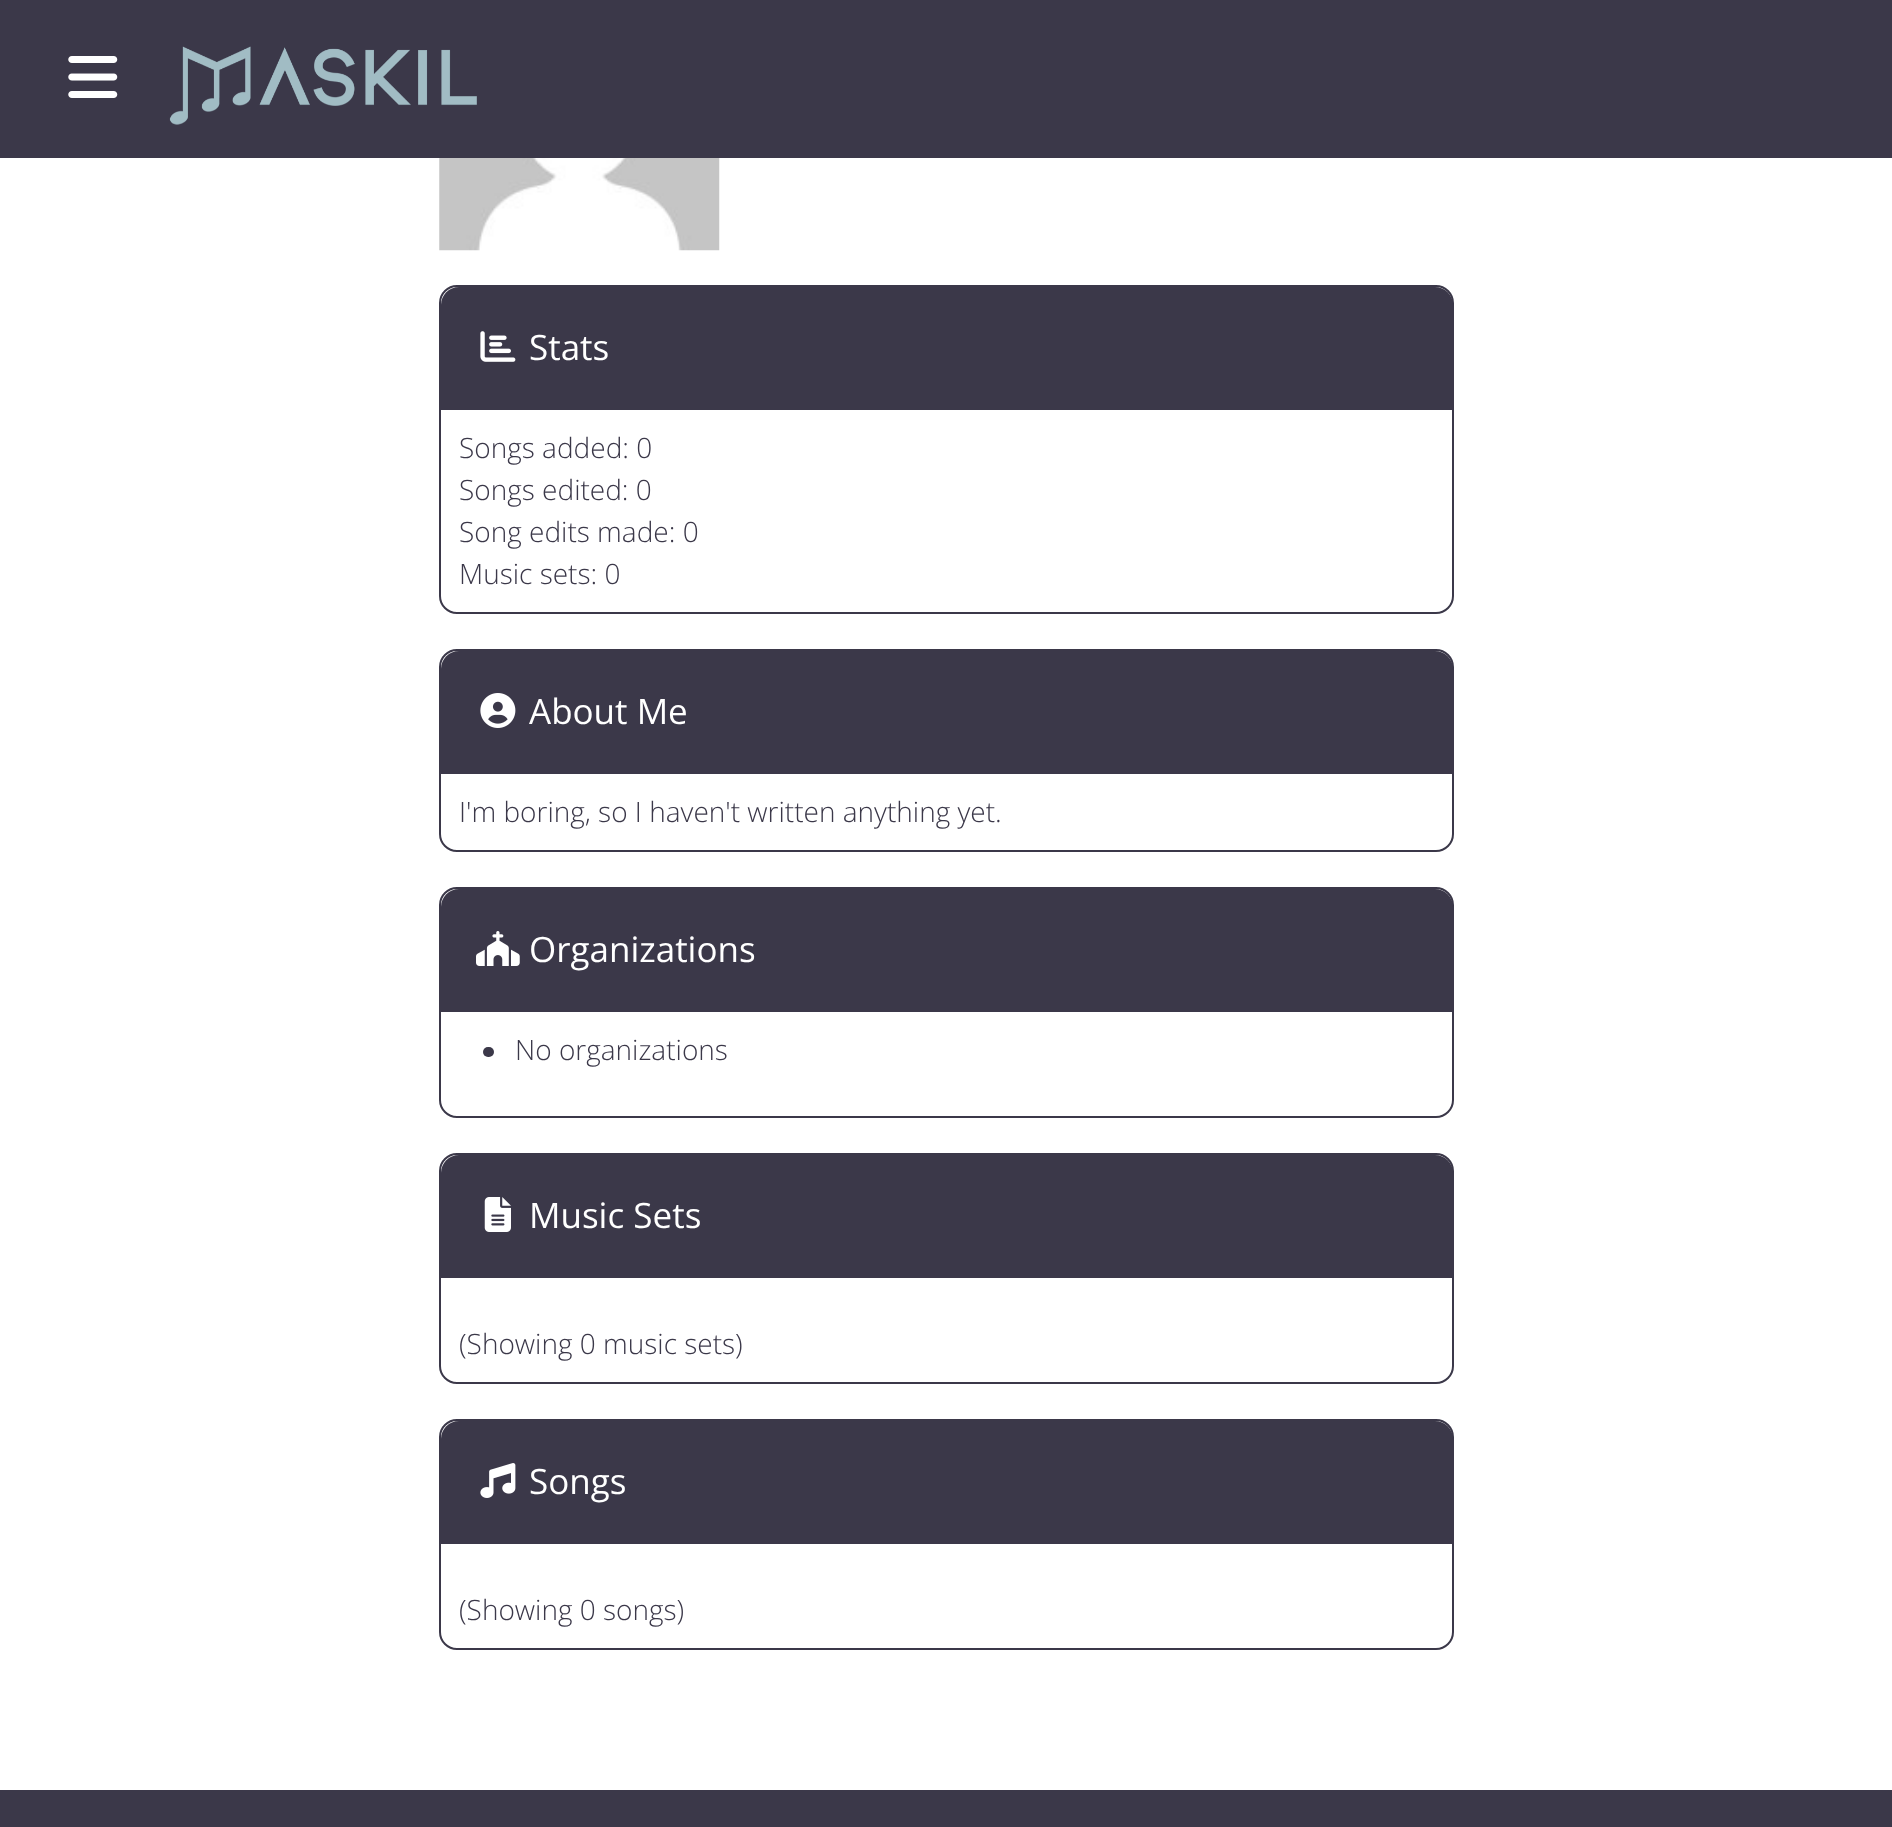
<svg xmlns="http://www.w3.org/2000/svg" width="1892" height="1827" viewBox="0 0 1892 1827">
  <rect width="100%" height="100%" fill="#fff"/>
  <path d="M0 0h1892v158H0z" fill="#3b3849"/>
  <image x="68" y="56" width="50" height="42" href="img/1.png"/>
  <image x="169" y="46" width="308" height="79" href="img/2.png"/>
  <image x="439" y="158" width="281" height="93" href="img/3.png"/>
  <rect x="440" y="286" width="1013" height="327" rx="17" fill="none" stroke="#3b3849" stroke-width="2"/>
  <path d="M459 287H1435C1445 287 1453 295 1453 305V410H441V305C441 295 449 287 459 287Z" fill="#3b3849"/>
  <image x="480" y="331" width="36" height="31" href="img/4.png"/>
  <rect x="440" y="650" width="1013" height="201" rx="17" fill="none" stroke="#3b3849" stroke-width="2"/>
  <path d="M459 651H1435C1445 651 1453 659 1453 669V774H441V669C441 659 449 651 459 651Z" fill="#3b3849"/>
  <image x="480" y="693" width="36" height="35" href="img/5.png"/>
  <rect x="440" y="888" width="1013" height="229" rx="17" fill="none" stroke="#3b3849" stroke-width="2"/>
  <path d="M459 889H1435C1445 889 1453 897 1453 907V1012H441V907C441 897 449 889 459 889Z" fill="#3b3849"/>
  <image x="476" y="931" width="44" height="35" href="img/6.png"/>
  <rect x="483" y="1047" width="11" height="10" rx="5" fill="#3b3849"/>
  <rect x="440" y="1154" width="1013" height="229" rx="17" fill="none" stroke="#3b3849" stroke-width="2"/>
  <path d="M459 1155H1435C1445 1155 1453 1163 1453 1173V1278H441V1173C441 1163 449 1155 459 1155Z" fill="#3b3849"/>
  <image x="484" y="1197" width="27" height="35" href="img/7.png"/>
  <rect x="440" y="1420" width="1013" height="229" rx="17" fill="none" stroke="#3b3849" stroke-width="2"/>
  <path d="M459 1421H1435C1445 1421 1453 1429 1453 1439V1544H441V1439C441 1429 449 1421 459 1421Z" fill="#3b3849"/>
  <image x="480" y="1463" width="36" height="35" href="img/8.png"/>
  <path d="M0 1790h1892v37H0z" fill="#3b3849"/>
  <text x="529" y="360" font-family="Open Sans" font-size="35" fill="#fff">Stats</text>
  <g font-family="Open Sans" font-size="28" font-weight="300" fill="#3b3849">
    <text x="459" y="458">Songs added: 0</text>
    <text x="459" y="500">Songs edited: 0</text>
    <text x="459" y="542">Song edits made: 0</text>
    <text x="459" y="584">Music sets: 0</text>
  </g>
  <text x="529" y="724" font-family="Open Sans" font-size="35" fill="#fff">About Me</text>
  <text x="459" y="822" font-family="Open Sans" font-size="28" font-weight="300" fill="#3b3849">I'm boring, so I haven't written anything yet.</text>
  <text x="529" y="962" font-family="Open Sans" font-size="35" fill="#fff">Organizations</text>
  <text x="515" y="1060" font-family="Open Sans" font-size="28" font-weight="300" fill="#3b3849">No organizations</text>
  <text x="529" y="1228" font-family="Open Sans" font-size="35" fill="#fff">Music Sets</text>
  <text x="459" y="1354" font-family="Open Sans" font-size="28" font-weight="300" fill="#3b3849">(Showing 0 music sets)</text>
  <text x="529" y="1494" font-family="Open Sans" font-size="35" fill="#fff">Songs</text>
  <text x="459" y="1620" font-family="Open Sans" font-size="28" font-weight="300" fill="#3b3849">(Showing 0 songs)</text>
</svg>
